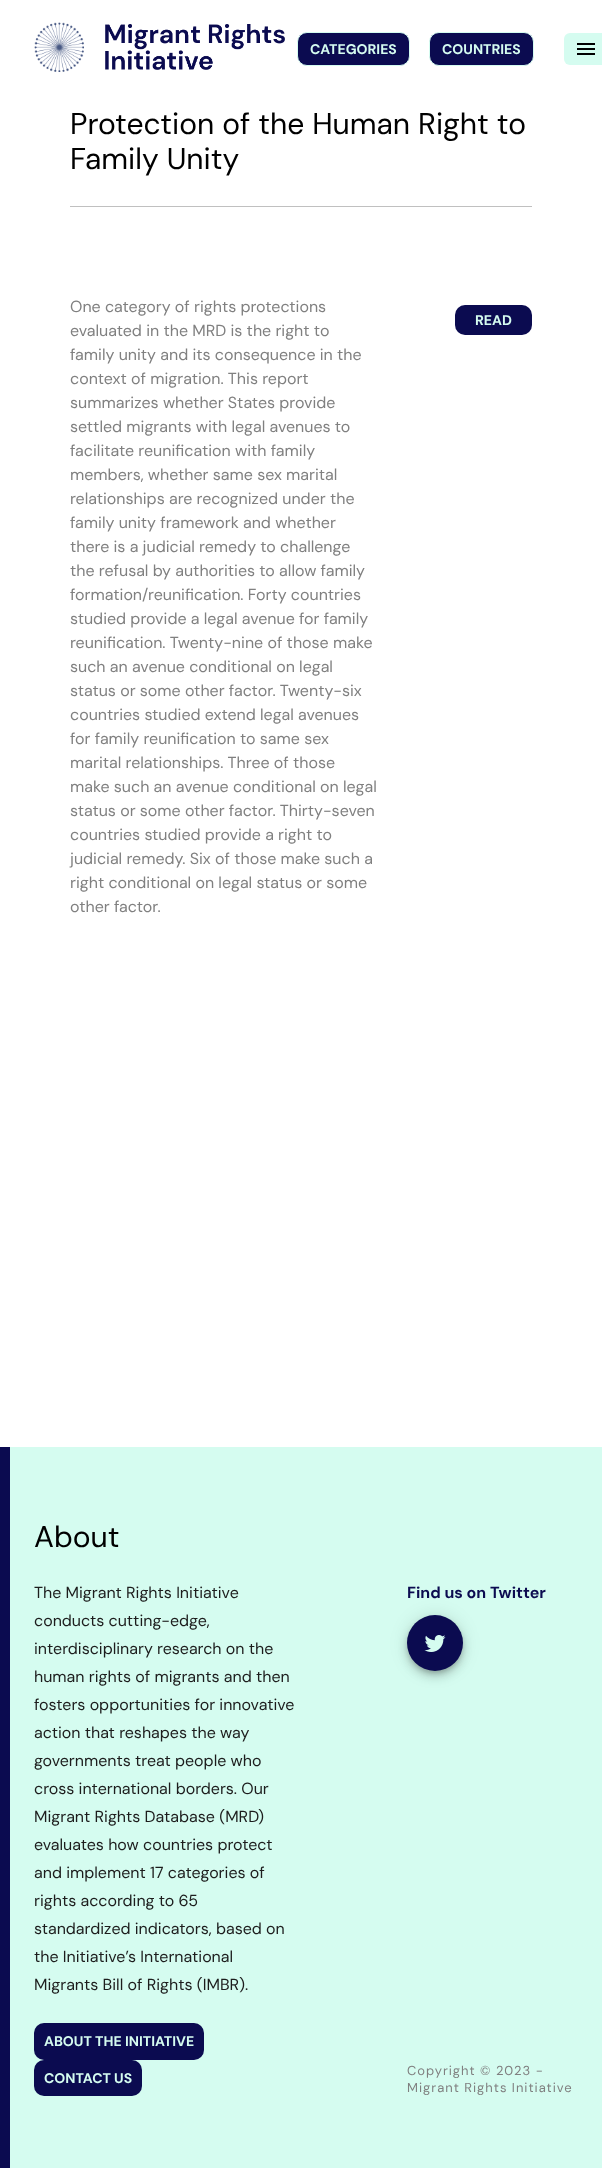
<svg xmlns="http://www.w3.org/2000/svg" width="602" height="2168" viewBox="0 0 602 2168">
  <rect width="100%" height="100%" fill="#fff"/>
  <image x="34" y="22" width="50" height="50" href="img/1.png"/>
  <image x="105" y="24" width="180" height="46" href="img/2.png"/>
  <rect x="297.5" y="32.5" width="112" height="33" rx="9.5" fill="#0b0b50" stroke="#d5fcf0"/>
  <rect x="429.5" y="32.5" width="104" height="33" rx="9.5" fill="#0b0b50" stroke="#d5fcf0"/>
  <rect x="564" y="33" width="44" height="32" rx="6" fill="#d5fcf0"/>
  <image x="577" y="43" width="18" height="12" href="img/3.png"/>
  <path d="M70 206h462v1H70z" fill="#c0c0c0"/>
  <rect x="455" y="305" width="77" height="30" rx="10" fill="#0b0b50"/>
  <path d="M10 1447h592v721H10z" fill="#d5fcf0"/>
  <path d="M0 1447h10v721H0z" fill="#0b0b50"/>
  <rect x="34" y="2023" width="170" height="37" rx="10" fill="#0b0b50"/>
  <rect x="34" y="2060" width="108" height="36" rx="10" fill="#0b0b50"/>
  <rect x="407" y="1616" width="56" height="56" rx="28" fill="#0000001f" filter="blur(9px)"/>
  <rect x="407" y="1621" width="56" height="56" rx="28" fill="#00000024" filter="blur(5px)"/>
  <rect x="408" y="1619" width="54" height="54" rx="27" fill="#00000033" filter="blur(2.5px)"/>
  <circle cx="435" cy="1643" r="28" fill="#0b0b50"/>
  <image x="424" y="1635" width="22" height="17" href="img/4.png"/>
  <g font-family="DM Sans" font-size="14" font-weight="bold" fill="#d5fcf0">
    <text x="310" y="54">CATEGORIES</text>
    <text x="442" y="54">COUNTRIES</text>
  </g>
  <g font-family="DM Sans" font-size="30" fill="#000">
    <text x="70" y="134">Protection of the Human Right to</text>
    <text x="70" y="169">Family Unity</text>
  </g>
  <g font-family="DM Sans" font-size="16" fill="#808080">
    <text x="70" y="312">One category of rights protections</text>
    <text x="70" y="336">evaluated in the MRD is the right to</text>
    <text x="70" y="360">family unity and its consequence in the</text>
    <text x="70" y="384">context of migration. This report</text>
    <text x="70" y="408">summarizes whether States provide</text>
    <text x="70" y="432">settled migrants with legal avenues to</text>
    <text x="70" y="456">facilitate reunification with family</text>
    <text x="70" y="480">members, whether same sex marital</text>
    <text x="70" y="504">relationships are recognized under the</text>
    <text x="70" y="528">family unity framework and whether</text>
    <text x="70" y="552">there is a judicial remedy to challenge</text>
    <text x="70" y="576">the refusal by authorities to allow family</text>
    <text x="70" y="600">formation/reunification. Forty countries</text>
    <text x="70" y="624">studied provide a legal avenue for family</text>
    <text x="70" y="648">reunification. Twenty-nine of those make</text>
    <text x="70" y="672">such an avenue conditional on legal</text>
    <text x="70" y="696">status or some other factor. Twenty-six</text>
    <text x="70" y="720">countries studied extend legal avenues</text>
    <text x="70" y="744">for family reunification to same sex</text>
    <text x="70" y="768">marital relationships. Three of those</text>
    <text x="70" y="792">make such an avenue conditional on legal</text>
    <text x="70" y="816">status or some other factor. Thirty-seven</text>
    <text x="70" y="840">countries studied provide a right to</text>
    <text x="70" y="864">judicial remedy. Six of those make such a</text>
    <text x="70" y="888">right conditional on legal status or some</text>
    <text x="70" y="912">other factor.</text>
  </g>
  <text x="475" y="325" font-family="DM Sans" font-size="14" font-weight="bold" fill="#d5fcf0">READ</text>
  <text x="34" y="1547" font-family="DM Sans" font-size="30" fill="#000">About</text>
  <g font-family="DM Sans" font-size="16" fill="#1d1d1d">
    <text x="34" y="1598">The Migrant Rights Initiative</text>
    <text x="34" y="1626">conducts cutting-edge,</text>
    <text x="34" y="1654">interdisciplinary research on the</text>
    <text x="34" y="1682">human rights of migrants and then</text>
    <text x="34" y="1710">fosters opportunities for innovative</text>
    <text x="34" y="1738">action that reshapes the way</text>
    <text x="34" y="1766">governments treat people who</text>
    <text x="34" y="1794">cross international borders. Our</text>
    <text x="34" y="1822">Migrant Rights Database (MRD)</text>
    <text x="34" y="1850">evaluates how countries protect</text>
    <text x="34" y="1878">and implement 17 categories of</text>
    <text x="34" y="1906">rights according to 65</text>
    <text x="34" y="1934">standardized indicators, based on</text>
    <text x="34" y="1962">the Initiative’s International</text>
    <text x="34" y="1990">Migrants Bill of Rights (IMBR).</text>
  </g>
  <g font-family="DM Sans" font-size="14" font-weight="bold" fill="#d5fcf0">
    <text x="44" y="2046">ABOUT THE INITIATIVE</text>
    <text x="44" y="2083">CONTACT US</text>
  </g>
  <text x="407" y="1598" font-family="DM Sans" font-size="16" font-weight="bold" fill="#0b0b50">Find us on Twitter</text>
  <g font-family="DM Sans" font-size="13" letter-spacing="1" fill="#808080">
    <text x="407" y="2075">Copyright © 2023 -</text>
    <text x="407" y="2092">Migrant Rights Initiative</text>
  </g>
</svg>
